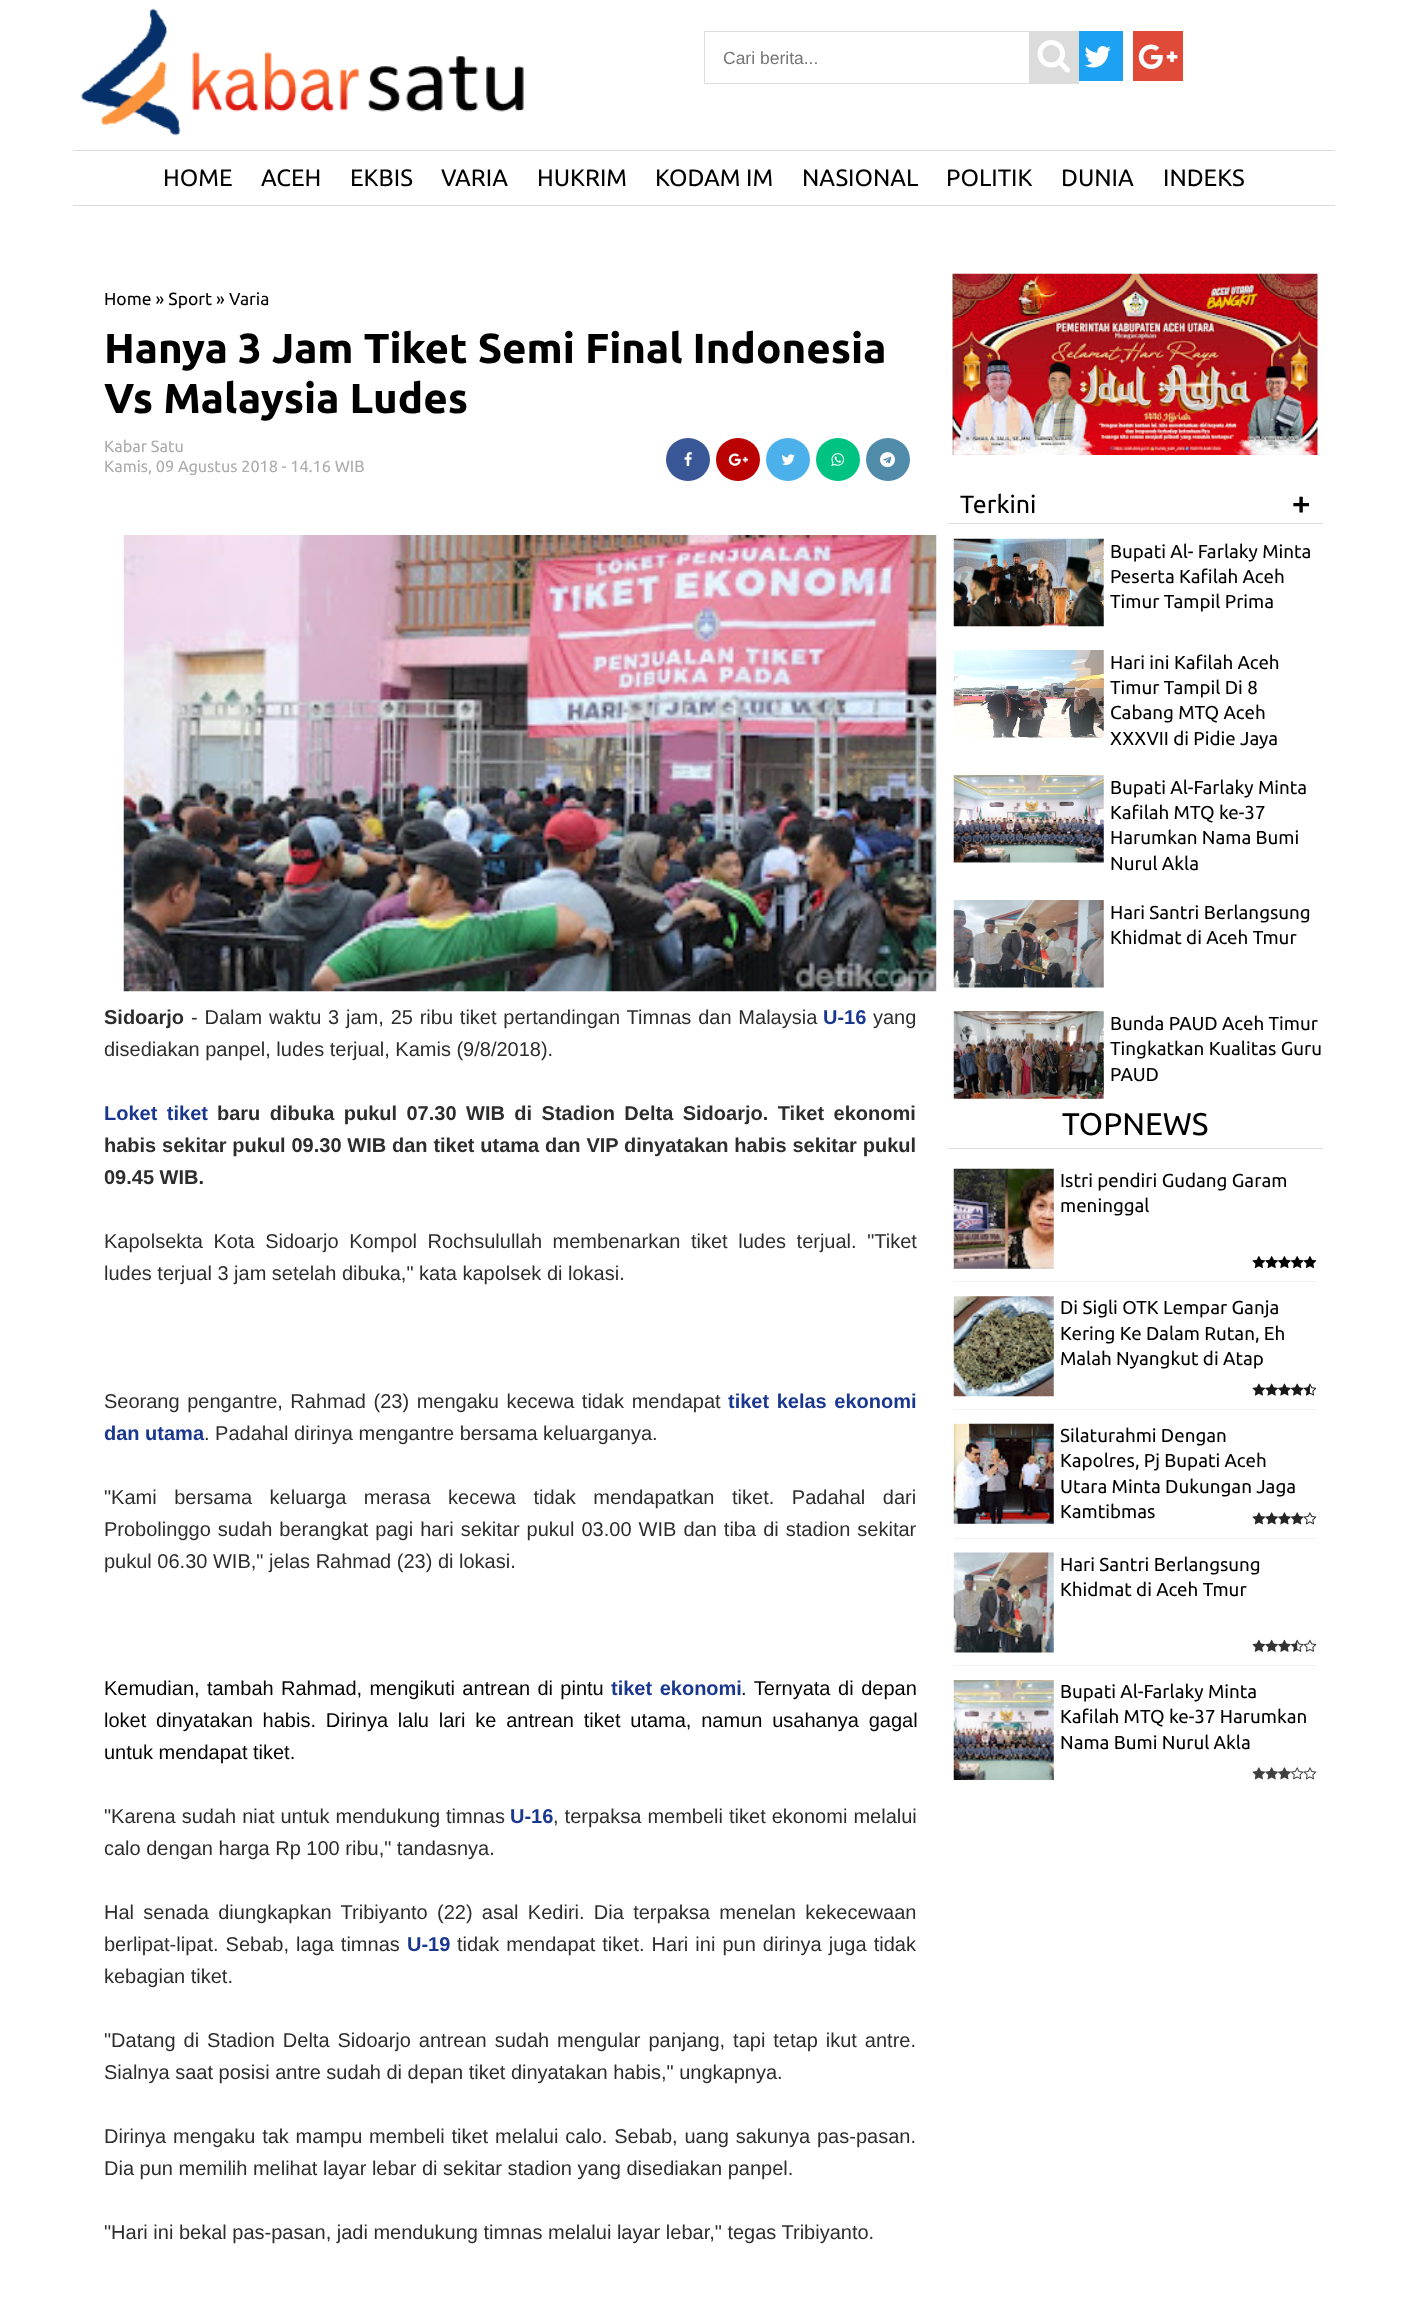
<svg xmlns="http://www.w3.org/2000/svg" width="1407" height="2304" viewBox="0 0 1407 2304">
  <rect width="100%" height="100%" fill="#fff"/>
  <image x="81" y="8" width="443" height="128" href="img/1.png"/>
  <path d="M704.5 31.5h374v52H704.5z" fill="none" stroke="#dcdcdc"/>
  <path d="M1029 32h49v51H1029z" fill="#dcdcdc"/>
  <image x="1037" y="40" width="33" height="33" href="img/2.png"/>
  <path d="M1079 31h44v50H1079z" fill="#1da1f2"/>
  <image x="1084" y="46" width="27" height="22" href="img/3.png"/>
  <path d="M1133 31h50v50H1133z" fill="#e04a39"/>
  <image x="1138" y="44" width="40" height="26" href="img/4.png"/>
  <path d="M73 150h1262v1H73z" fill="#dcdcdc"/>
  <path d="M73 205h1262v1H73z" fill="#dcdcdc"/>
  <rect x="666" y="438" width="44" height="43" rx="21.5" fill="#395796"/>
  <image x="684" y="452" width="8" height="15" href="img/5.png"/>
  <rect x="716" y="438" width="44" height="43" rx="21.5" fill="#bb0202"/>
  <image x="728" y="453" width="21" height="13" href="img/6.png"/>
  <rect x="766" y="438" width="44" height="43" rx="21.5" fill="#4cb0ea"/>
  <image x="781" y="454" width="14" height="11" href="img/7.png"/>
  <rect x="816" y="438" width="44" height="43" rx="21.5" fill="#00c382"/>
  <image x="831" y="453" width="14" height="13" href="img/8.png"/>
  <rect x="866" y="438" width="44" height="43" rx="21.5" fill="#508ba9"/>
  <image x="880" y="452" width="15" height="16" href="img/9.png"/>
  <image x="123" y="535" width="814" height="457" href="img/10.png"/>
  <image x="952" y="273" width="366" height="182" href="img/11.png"/>
  <path d="M948 523h375v1H948z" fill="#dcdcdc"/>
  <image x="953" y="538" width="151" height="89" href="img/12.png"/>
  <image x="953" y="650" width="151" height="88" href="img/13.png"/>
  <image x="953" y="775" width="151" height="88" href="img/14.png"/>
  <image x="953" y="900" width="151" height="88" href="img/15.png"/>
  <image x="953" y="1011" width="151" height="88" href="img/16.png"/>
  <path d="M948 1148h375v1H948z" fill="#dcdcdc"/>
  <path d="M954 1281h362v1H954z" fill="#f1f1f1"/>
  <path d="M954 1169h100v100H954z" fill="#fafafa"/>
  <image x="953" y="1168" width="101" height="101" href="img/17.png"/>
  <image x="1252" y="1256" width="65" height="13" href="img/18.png"/>
  <path d="M954 1409h362v1H954z" fill="#f1f1f1"/>
  <path d="M954 1296h100v100H954z" fill="#fafafa"/>
  <image x="953" y="1296" width="101" height="101" href="img/19.png"/>
  <image x="1252" y="1383" width="65" height="13" href="img/20.png"/>
  <path d="M954 1538h362v1H954z" fill="#f1f1f1"/>
  <path d="M954 1424h100v100H954z" fill="#fafafa"/>
  <image x="953" y="1423" width="101" height="101" href="img/21.png"/>
  <image x="1252" y="1512" width="65" height="13" href="img/22.png"/>
  <path d="M954 1665h362v1H954z" fill="#f1f1f1"/>
  <path d="M954 1553h100v100H954z" fill="#fafafa"/>
  <image x="953" y="1552" width="101" height="101" href="img/23.png"/>
  <image x="1252" y="1639" width="65" height="13" href="img/24.png"/>
  <image x="953" y="1680" width="101" height="100" href="img/25.png"/>
  <image x="1252" y="1767" width="65" height="13" href="img/26.png"/>
  <text x="723" y="64" font-family="Liberation Sans" font-size="17.5" fill="#757575">Cari berita...</text>
  <g font-family="Ubuntu" font-size="23.75" fill="#000">
    <text x="163" y="186">HOME</text>
    <text x="261" y="186">ACEH</text>
    <text x="350" y="186">EKBIS</text>
    <text x="441" y="186">VARIA</text>
    <text x="537" y="186">HUKRIM</text>
    <text x="655" y="186">KODAM IM</text>
    <text x="802" y="186">NASIONAL</text>
    <text x="946" y="186">POLITIK</text>
    <text x="1061" y="186">DUNIA</text>
    <text x="1163" y="186">INDEKS</text>
  </g>
  <text x="104" y="305" font-family="Ubuntu" font-size="17.5" fill="#000">Home » Sport » Varia</text>
  <g font-family="Ubuntu" font-size="42" font-weight="bold" fill="#000">
    <text x="104" y="363">Hanya 3 Jam Tiket Semi Final Indonesia</text>
    <text x="104" y="413">Vs Malaysia Ludes</text>
  </g>
  <g font-family="Ubuntu" font-size="16.25" fill="#acacac">
    <text x="104" y="452">Kabar Satu</text>
    <text x="104" y="472">Kamis, 09 Agustus 2018 - 14.16 WIB</text>
  </g>
  <text x="104" y="1024" font-family="Liberation Sans" font-size="20" font-weight="bold" fill="#2d2d2d">Sidoarjo</text>
  <text x="191" y="1024" word-spacing="1.25" font-family="Liberation Sans" font-size="20" fill="#2d2d2d">- Dalam waktu 3 jam, 25 ribu tiket pertandingan Timnas dan Malaysia</text>
  <text x="823" y="1024" font-family="Liberation Sans" font-size="20" font-weight="bold" fill="#19378f">U-16</text>
  <g font-family="Liberation Sans" font-size="20" fill="#2d2d2d">
    <text x="873" y="1024">yang</text>
    <text x="104" y="1056">disediakan panpel, ludes terjual, Kamis (9/8/2018).</text>
  </g>
  <text x="104" y="1120" word-spacing="3.9" font-family="Liberation Sans" font-size="20" font-weight="bold" fill="#19378f">Loket tiket</text>
  <g font-family="Liberation Sans" font-size="20" font-weight="bold" fill="#2d2d2d">
    <text x="217" y="1120" word-spacing="3.9">baru dibuka pukul 07.30 WIB di Stadion Delta Sidoarjo. Tiket ekonomi</text>
    <text x="104" y="1152" word-spacing="0.25">habis sekitar pukul 09.30 WIB dan tiket utama dan VIP dinyatakan habis sekitar pukul</text>
    <text x="104" y="1184">09.45 WIB.</text>
  </g>
  <g font-family="Liberation Sans" font-size="20" fill="#2d2d2d">
    <text x="104" y="1248" word-spacing="5">Kapolsekta Kota Sidoarjo Kompol Rochsulullah membenarkan tiket ludes terjual. "Tiket</text>
    <text x="104" y="1280">ludes terjual 3 jam setelah dibuka," kata kapolsek di lokasi.</text>
    <text x="104" y="1408" word-spacing="2">Seorang pengantre, Rahmad (23) mengaku kecewa tidak mendapat</text>
  </g>
  <g font-family="Liberation Sans" font-size="20" font-weight="bold" fill="#19378f">
    <text x="728" y="1408" word-spacing="2">tiket kelas ekonomi</text>
    <text x="104" y="1440">dan utama</text>
  </g>
  <g font-family="Liberation Sans" font-size="20" fill="#2d2d2d">
    <text x="204" y="1440">. Padahal dirinya mengantre bersama keluarganya.</text>
    <text x="104" y="1504" word-spacing="12">"Kami bersama keluarga merasa kecewa tidak mendapatkan tiket. Padahal dari</text>
    <text x="104" y="1536" word-spacing="1.5">Probolinggo sudah berangkat pagi hari sekitar pukul 03.00 WIB dan tiba di stadion sekitar</text>
    <text x="104" y="1568">pukul 06.30 WIB," jelas Rahmad (23) di lokasi.</text>
  </g>
  <text x="104" y="1695" word-spacing="1.75" font-family="Liberation Sans" font-size="20" fill="#000">Kemudian, tambah Rahmad, mengikuti antrean di pintu</text>
  <text x="611" y="1695" word-spacing="2" font-family="Liberation Sans" font-size="20" font-weight="bold" fill="#19378f">tiket ekonomi</text>
  <g font-family="Liberation Sans" font-size="20" fill="#000">
    <text x="741" y="1695" word-spacing="2">. Ternyata di depan</text>
    <text x="104" y="1727" word-spacing="4.25">loket dinyatakan habis. Dirinya lalu lari ke antrean tiket utama, namun usahanya gagal</text>
    <text x="104" y="1759">untuk mendapat tiket.</text>
  </g>
  <text x="104" y="1823" word-spacing="0.5" font-family="Liberation Sans" font-size="20" fill="#2d2d2d">"Karena sudah niat untuk mendukung timnas</text>
  <text x="510" y="1823" font-family="Liberation Sans" font-size="20" font-weight="bold" fill="#19378f">U-16</text>
  <g font-family="Liberation Sans" font-size="20" fill="#2d2d2d">
    <text x="553" y="1823" word-spacing="0.5">, terpaksa membeli tiket ekonomi melalui</text>
    <text x="104" y="1855">calo dengan harga Rp 100 ribu," tandasnya.</text>
    <text x="104" y="1919" word-spacing="3.75">Hal senada diungkapkan Tribiyanto (22) asal Kediri. Dia terpaksa menelan kekecewaan</text>
    <text x="104" y="1951" word-spacing="1.5">berlipat-lipat. Sebab, laga timnas</text>
  </g>
  <text x="407" y="1951" font-family="Liberation Sans" font-size="20" font-weight="bold" fill="#19378f">U-19</text>
  <g font-family="Liberation Sans" font-size="20" fill="#2d2d2d">
    <text x="457" y="1951" word-spacing="1.5">tidak mendapat tiket. Hari ini pun dirinya juga tidak</text>
    <text x="104" y="1983">kebagian tiket.</text>
    <text x="104" y="2047" word-spacing="2.4">"Datang di Stadion Delta Sidoarjo antrean sudah mengular panjang, tapi tetap ikut antre.</text>
    <text x="104" y="2079">Sialnya saat posisi antre sudah di depan tiket dinyatakan habis," ungkapnya.</text>
    <text x="104" y="2143" word-spacing="1.25">Dirinya mengaku tak mampu membeli tiket melalui calo. Sebab, uang sakunya pas-pasan.</text>
    <text x="104" y="2175">Dia pun memilih melihat layar lebar di sekitar stadion yang disediakan panpel.</text>
    <text x="104" y="2239">"Hari ini bekal pas-pasan, jadi mendukung timnas melalui layar lebar," tegas Tribiyanto.</text>
  </g>
  <text x="960" y="513" font-family="Ubuntu" font-size="25" fill="#000">Terkini</text>
  <text x="1292" y="515" font-family="Liberation Sans" font-size="31.25" font-weight="bold" fill="#000">+</text>
  <g font-family="Ubuntu" font-size="18.75" fill="#000">
    <text x="1110" y="558">Bupati Al- Farlaky Minta</text>
    <text x="1110" y="583">Peserta Kafilah Aceh</text>
    <text x="1110" y="608">Timur Tampil Prima</text>
    <text x="1110" y="669">Hari ini Kafilah Aceh</text>
    <text x="1110" y="694">Timur Tampil Di 8</text>
    <text x="1110" y="719">Cabang MTQ Aceh</text>
    <text x="1110" y="745">XXXVII di Pidie Jaya</text>
    <text x="1110" y="794">Bupati Al-Farlaky Minta</text>
    <text x="1110" y="819">Kafilah MTQ ke-37</text>
    <text x="1110" y="844">Harumkan Nama Bumi</text>
    <text x="1110" y="870">Nurul Akla</text>
    <text x="1110" y="919">Hari Santri Berlangsung</text>
    <text x="1110" y="944">Khidmat di Aceh Tmur</text>
    <text x="1110" y="1030">Bunda PAUD Aceh Timur</text>
    <text x="1110" y="1055">Tingkatkan Kualitas Guru</text>
    <text x="1110" y="1081">PAUD</text>
  </g>
  <text x="1062" y="1135" font-family="Ubuntu" font-size="31.25" fill="#000">TOPNEWS</text>
  <g font-family="Ubuntu" font-size="18.75" fill="#000">
    <text x="1060" y="1187">Istri pendiri Gudang Garam</text>
    <text x="1060" y="1212">meninggal</text>
    <text x="1060" y="1314">Di Sigli OTK Lempar Ganja</text>
    <text x="1060" y="1340">Kering Ke Dalam Rutan, Eh</text>
    <text x="1060" y="1365">Malah Nyangkut di Atap</text>
    <text x="1060" y="1442">Silaturahmi Dengan</text>
    <text x="1060" y="1467">Kapolres, Pj Bupati Aceh</text>
    <text x="1060" y="1493">Utara Minta Dukungan Jaga</text>
    <text x="1060" y="1518">Kamtibmas</text>
    <text x="1060" y="1571">Hari Santri Berlangsung</text>
    <text x="1060" y="1596">Khidmat di Aceh Tmur</text>
    <text x="1060" y="1698">Bupati Al-Farlaky Minta</text>
    <text x="1060" y="1723">Kafilah MTQ ke-37 Harumkan</text>
    <text x="1060" y="1749">Nama Bumi Nurul Akla</text>
  </g>
</svg>
